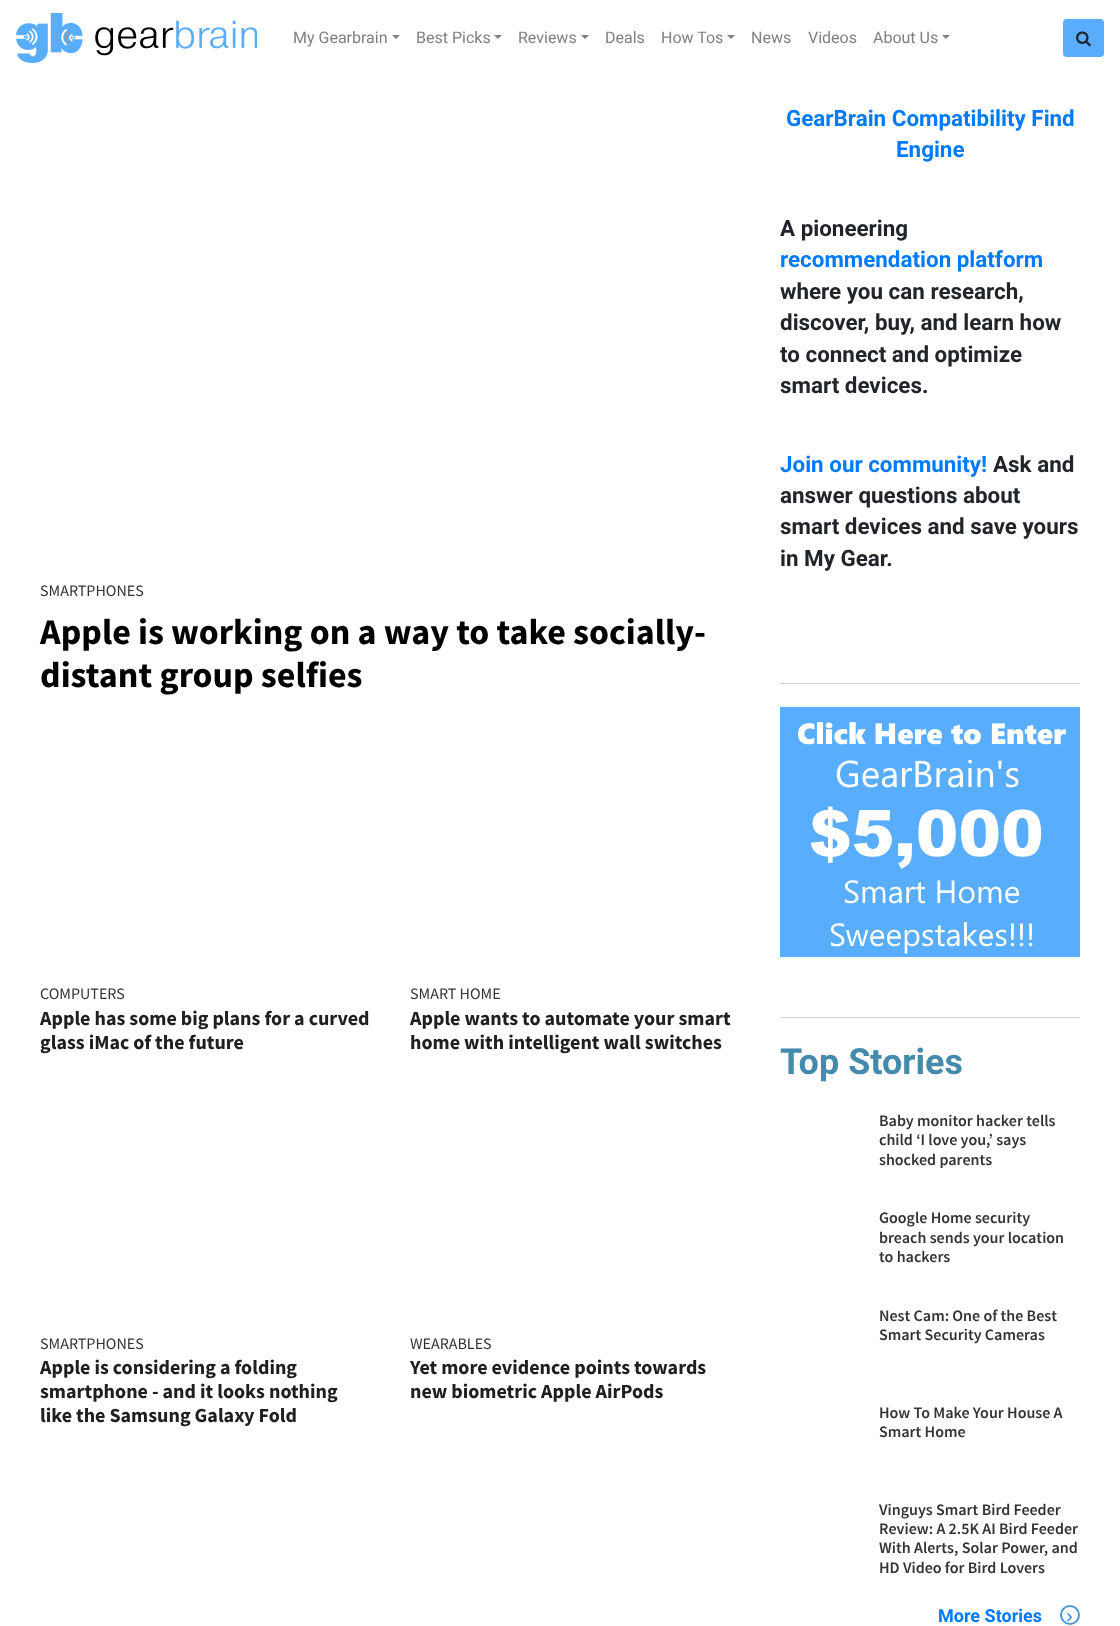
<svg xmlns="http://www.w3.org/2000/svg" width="1120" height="1626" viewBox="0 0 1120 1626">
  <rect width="100%" height="100%" fill="#fff"/>
  <image x="16" y="13" width="241" height="50" href="img/1.png"/>
  <path d="M392 35H400L396 39Z" fill="#808080"/>
  <path d="M494 35H502L498 39Z" fill="#808080"/>
  <path d="M581 35H589L585 39Z" fill="#808080"/>
  <path d="M727 35H735L731 39Z" fill="#808080"/>
  <path d="M942 35H950L946 39Z" fill="#808080"/>
  <rect x="1063" y="19" width="41" height="38" rx="4" fill="#58adfc"/>
  <image x="1076" y="31" width="15" height="16" href="img/2.png"/>
  <path d="M780 683h300v1H780z" fill="#d2d2d2"/>
  <image x="780" y="707" width="300" height="250" href="img/3.png"/>
  <path d="M780 1017h300v1H780z" fill="#d2d2d2"/>
  <circle cx="1070" cy="1615" r="9" fill="none" stroke="#479ad2" stroke-width="2"/>
  <image x="1067" y="1613" width="5" height="9" href="img/4.png"/>
  <g font-family="Roboto" font-size="16" fill="#808080">
    <text x="293" y="43">My Gearbrain</text>
    <text x="416" y="43">Best Picks</text>
    <text x="518" y="43">Reviews</text>
    <text x="605" y="43">Deals</text>
    <text x="661" y="43">How Tos</text>
    <text x="751" y="43">News</text>
    <text x="808" y="43">Videos</text>
    <text x="873" y="43">About Us</text>
  </g>
  <text x="40" y="596" font-family="Source Sans Pro" font-size="16" fill="#333">SMARTPHONES</text>
  <g font-family="Source Sans Pro" font-size="36" font-weight="bold" fill="#000">
    <text x="40" y="644">Apple is working on a way to take socially-</text>
    <text x="40" y="687">distant group selfies</text>
  </g>
  <text x="40" y="999" font-family="Source Sans Pro" font-size="16" fill="#333">COMPUTERS</text>
  <g font-family="Source Sans Pro" font-size="20" font-weight="bold" fill="#1f1f1f">
    <text x="40" y="1025">Apple has some big plans for a curved</text>
    <text x="40" y="1049">glass iMac of the future</text>
  </g>
  <text x="410" y="999" font-family="Source Sans Pro" font-size="16" fill="#333">SMART HOME</text>
  <g font-family="Source Sans Pro" font-size="20" font-weight="bold" fill="#1f1f1f">
    <text x="410" y="1025">Apple wants to automate your smart</text>
    <text x="410" y="1049">home with intelligent wall switches</text>
  </g>
  <text x="40" y="1349" font-family="Source Sans Pro" font-size="16" fill="#333">SMARTPHONES</text>
  <g font-family="Source Sans Pro" font-size="20" font-weight="bold" fill="#1f1f1f">
    <text x="40" y="1374">Apple is considering a folding</text>
    <text x="40" y="1398">smartphone - and it looks nothing</text>
    <text x="40" y="1422">like the Samsung Galaxy Fold</text>
  </g>
  <text x="410" y="1349" font-family="Source Sans Pro" font-size="16" fill="#333">WEARABLES</text>
  <g font-family="Source Sans Pro" font-size="20" font-weight="bold" fill="#1f1f1f">
    <text x="410" y="1374">Yet more evidence points towards</text>
    <text x="410" y="1398">new biometric Apple AirPods</text>
  </g>
  <g font-family="Roboto" font-size="22.4" font-weight="bold" fill="#007bff">
    <text x="786" y="126">GearBrain Compatibility Find</text>
    <text x="896" y="157">Engine</text>
  </g>
  <text x="780" y="236" font-family="Roboto" font-size="22.4" font-weight="bold" fill="#212529">A pioneering</text>
  <text x="780" y="267" font-family="Roboto" font-size="22.4" font-weight="bold" fill="#007bff">recommendation platform</text>
  <g font-family="Roboto" font-size="22.4" font-weight="bold" fill="#212529">
    <text x="780" y="299">where you can research,</text>
    <text x="780" y="330">discover, buy, and learn how</text>
    <text x="780" y="362">to connect and optimize</text>
    <text x="780" y="393">smart devices.</text>
  </g>
  <text x="780" y="472" font-family="Roboto" font-size="22.4" font-weight="bold" fill="#007bff">Join our community!</text>
  <g font-family="Roboto" font-size="22.4" font-weight="bold" fill="#212529">
    <text x="993" y="472">Ask and</text>
    <text x="780" y="503">answer questions about</text>
    <text x="780" y="534">smart devices and save yours</text>
    <text x="780" y="566">in My Gear.</text>
  </g>
  <text x="780" y="1074" font-family="Roboto" font-size="36" font-weight="bold" fill="#438aac">Top Stories</text>
  <g font-family="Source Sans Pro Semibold" font-size="16" font-weight="600" fill="#333">
    <text x="879" y="1126">Baby monitor hacker tells</text>
    <text x="879" y="1145">child ‘I love you,’ says</text>
    <text x="879" y="1165">shocked parents</text>
    <text x="879" y="1223">Google Home security</text>
    <text x="879" y="1243">breach sends your location</text>
    <text x="879" y="1262">to hackers</text>
    <text x="879" y="1321">Nest Cam: One of the Best</text>
    <text x="879" y="1340">Smart Security Cameras</text>
    <text x="879" y="1418">How To Make Your House A</text>
    <text x="879" y="1437">Smart Home</text>
    <text x="879" y="1515">Vinguys Smart Bird Feeder</text>
    <text x="879" y="1534">Review: A 2.5K AI Bird Feeder</text>
    <text x="879" y="1553">With Alerts, Solar Power, and</text>
    <text x="879" y="1573">HD Video for Bird Lovers</text>
  </g>
  <text x="938" y="1622" font-family="Roboto" font-size="18" font-weight="bold" fill="#007bff">More Stories</text>
</svg>
